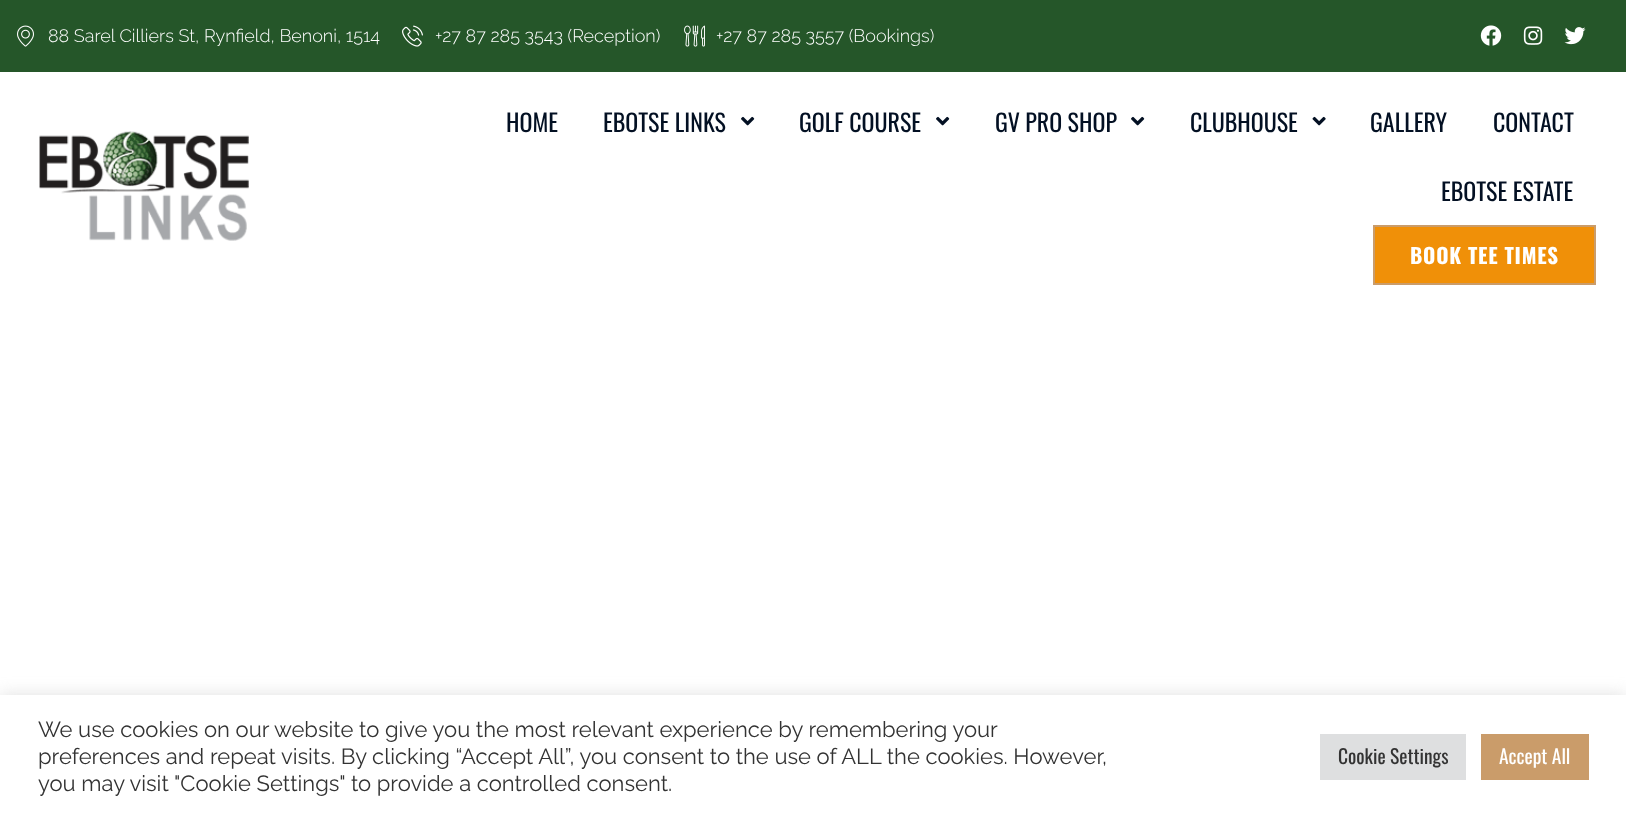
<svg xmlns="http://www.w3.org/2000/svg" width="1626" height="817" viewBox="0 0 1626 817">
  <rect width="100%" height="100%" fill="#fff"/>
  <path d="M0 0h1626v72H0z" fill="#255629"/>
  <image x="17" y="25" width="17" height="22" href="img/1.png"/>
  <image x="402" y="25" width="21" height="22" href="img/2.png"/>
  <image x="684" y="25" width="21" height="22" href="img/3.png"/>
  <image x="1480" y="25" width="22" height="21" href="img/4.png"/>
  <image x="1523" y="26" width="20" height="19" href="img/5.png"/>
  <image x="1564" y="27" width="22" height="18" href="img/6.png"/>
  <image x="39" y="131" width="210" height="110" href="img/7.png"/>
  <image x="741" y="116" width="14" height="10" href="img/8.png"/>
  <image x="936" y="116" width="14" height="10" href="img/8.png"/>
  <image x="1131" y="116" width="14" height="10" href="img/8.png"/>
  <image x="1312" y="116" width="14" height="10" href="img/9.png"/>
  <path d="M1374 226h221v58H1374z" fill="#f09008" stroke="#ca9c6a" stroke-width="2"/>
  <path d="M0 693h1626v123H0z" fill="#acabab4d" filter="blur(7.5px)"/>
  <path d="M0 695h1626v122H0z" fill="#fff"/>
  <path d="M1320 734h146v46H1320z" fill="#dedfe0"/>
  <path d="M1481 734h108v46H1481z" fill="#ca9c6a"/>
  <g font-family="Raleway" font-size="18" font-weight="300" fill="#fff">
    <text x="48" y="42">88 Sarel Cilliers St, Rynfield, Benoni, 1514</text>
    <text x="435" y="42">+27 87 285 3543 (Reception)</text>
    <text x="716" y="42">+27 87 285 3557 (Bookings)</text>
  </g>
  <g font-family="Oswald" font-size="24" fill="#031023">
    <text x="506" y="132">HOME</text>
    <text x="603" y="132">EBOTSE LINKS</text>
    <text x="799" y="132">GOLF COURSE</text>
    <text x="995" y="132">GV PRO SHOP</text>
    <text x="1190" y="132">CLUBHOUSE</text>
    <text x="1370" y="132">GALLERY</text>
    <text x="1493" y="132">CONTACT</text>
    <text x="1441" y="201">EBOTSE ESTATE</text>
  </g>
  <text x="1410" y="264" font-family="Oswald" font-size="21" font-weight="bold" letter-spacing="0.75" fill="#fff">BOOK TEE TIMES</text>
  <g font-family="Raleway" font-size="22" fill="#333">
    <text x="38" y="737">We use cookies on our website to give you the most relevant experience by remembering your</text>
    <text x="38" y="764">preferences and repeat visits. By clicking “Accept All”, you consent to the use of ALL the cookies. However,</text>
    <text x="38" y="791">you may visit "Cookie Settings" to provide a controlled consent.</text>
  </g>
  <text x="1338" y="764" font-family="Oswald" font-size="19.5" fill="#333">Cookie Settings</text>
  <text x="1499" y="764" font-family="Oswald" font-size="19.5" fill="#fff">Accept All</text>
</svg>
